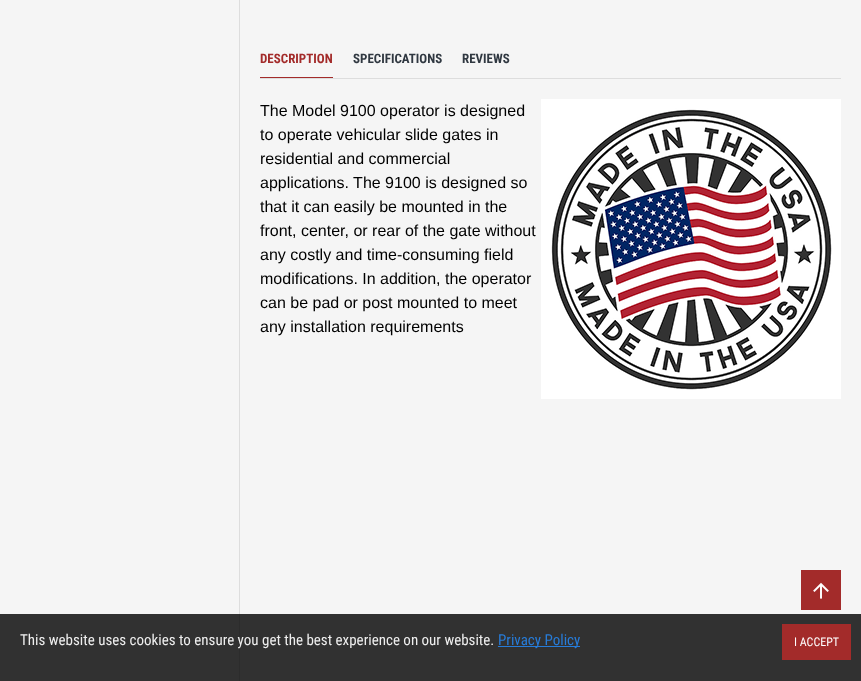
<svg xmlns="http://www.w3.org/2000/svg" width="861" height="681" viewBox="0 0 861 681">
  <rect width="100%" height="100%" fill="#f5f5f5"/>
  <path d="M0 614h861v67H0z" fill="#313131"/>
  <path d="M239 0h1v614H239z" fill="#ddd"/>
  <path d="M239 614h1v67H239z" fill="#2c2c2c"/>
  <path d="M260 78h581v1H260z" fill="#ddd"/>
  <path d="M260 77h73v1H260z" fill="#a32b2a"/>
  <image x="541" y="99" width="300" height="300" href="img/1.png"/>
  <path d="M801 570h40v40H801z" fill="#a32b2a"/>
  <image x="813" y="582" width="16" height="17" href="img/2.png"/>
  <path d="M498 646h82v1H498z" fill="#277cd9"/>
  <path d="M782 624h69v36H782z" fill="#a32b2a"/>
  <text x="260" y="63" font-family="Roboto Condensed" font-size="13" font-weight="bold" fill="#a32b2a">DESCRIPTION</text>
  <g font-family="Roboto Condensed" font-size="13" font-weight="bold" fill="#303841">
    <text x="353" y="63">SPECIFICATIONS</text>
    <text x="462" y="63">REVIEWS</text>
  </g>
  <g font-family="Liberation Sans" font-size="16" fill="#000">
    <text x="260" y="116">The Model 9100 operator is designed</text>
    <text x="260" y="140">to operate vehicular slide gates in</text>
    <text x="260" y="164">residential and commercial</text>
    <text x="260" y="188">applications. The 9100 is designed so</text>
    <text x="260" y="212">that it can easily be mounted in the</text>
    <text x="260" y="236">front, center, or rear of the gate without</text>
    <text x="260" y="260">any costly and time-consuming field</text>
    <text x="260" y="284">modifications. In addition, the operator</text>
    <text x="260" y="308">can be pad or post mounted to meet</text>
    <text x="260" y="332">any installation requirements</text>
  </g>
  <text x="20" y="645" font-family="Roboto Condensed" font-size="15" fill="#eee">This website uses cookies to ensure you get the best experience on our website.</text>
  <text x="498" y="645" font-family="Roboto Condensed" font-size="15" fill="#277cd9">Privacy Policy</text>
  <text x="794" y="646" font-family="Roboto Condensed" font-size="12" fill="#fff">I ACCEPT</text>
</svg>
